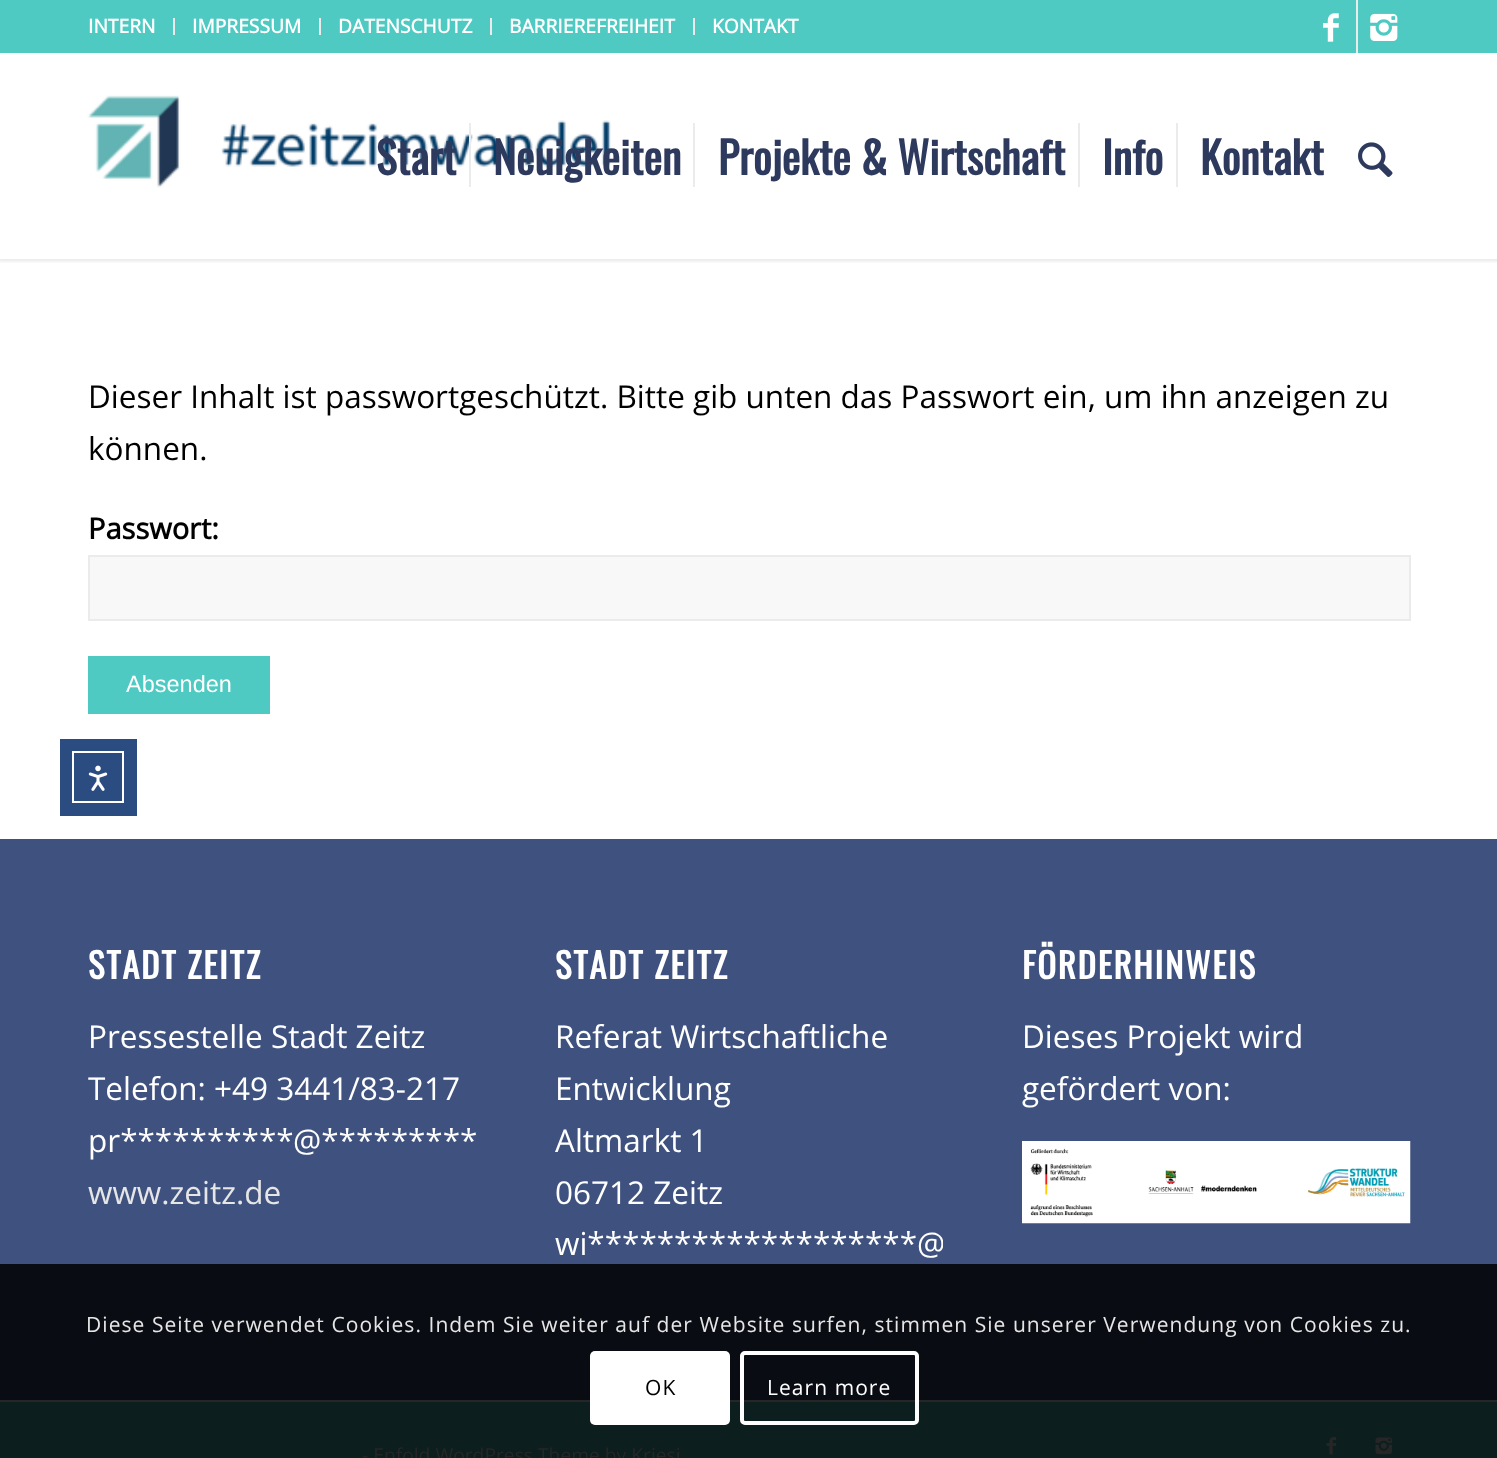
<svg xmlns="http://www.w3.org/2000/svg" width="1497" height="1458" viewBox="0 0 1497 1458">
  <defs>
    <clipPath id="clip1"><path d="M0 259h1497v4H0z"/></clipPath>
    <clipPath id="clip2"><path d="M88 917h388v329H88z"/></clipPath>
    <clipPath id="clip3"><path d="M555 917h388v380H555z"/></clipPath>
  </defs>
  <rect width="100%" height="100%" fill="#fff"/>
  <g clip-path="url(#clip1)">
    <path d="M-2 -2h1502v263H-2z" fill="#0000001a" filter="blur(2px)"/>
  </g>
  <path d="M0 0h1497v53H0z" fill="#4ecac2"/>
  <path d="M173 18h2v17H173z" fill="#ebebeb"/>
  <path d="M319 18h2v17H319z" fill="#ebebeb"/>
  <path d="M490 18h2v17H490z" fill="#ebebeb"/>
  <path d="M693 18h2v17H693z" fill="#ebebeb"/>
  <path d="M1356 0h2v53H1356z" fill="#ebebeb"/>
  <image x="1323" y="13" width="16" height="29" href="img/1.png"/>
  <image x="1370" y="13" width="28" height="28" href="img/2.png"/>
  <image x="87" y="95" width="524" height="93" href="img/3.png"/>
  <path d="M469 123h2v64H469z" fill="#ebebeb"/>
  <path d="M693 123h2v64H693z" fill="#ebebeb"/>
  <path d="M1078 123h2v64H1078z" fill="#ebebeb"/>
  <path d="M1176 123h2v64H1176z" fill="#ebebeb"/>
  <image x="1358" y="142" width="35" height="35" href="img/4.png"/>
  <path d="M89 556h1321v64H89z" fill="#f8f8f8" stroke="#ebebeb" stroke-width="2"/>
  <path d="M88 656h182v58H88z" fill="#4ecac2"/>
  <path d="M0 839h1497v425H0z" fill="#3f527f"/>
  <path d="M0 1264h1497v136H0z" fill="#090c13"/>
  <image x="1022" y="1141" width="389" height="83" href="img/5.png"/>
  <path d="M0 1402h1497v56H0z" fill="#0c1e1d"/>
  <path d="M0 1400h1497v2H0z" fill="#262626"/>
  <image x="1326" y="1437" width="11" height="18" href="img/6.png"/>
  <image x="1375" y="1437" width="18" height="18" href="img/7.png"/>
  <path d="M60 739h77v77H60z" fill="#2b4c80"/>
  <path d="M73 752h50v50H73z" fill="none" stroke="#fff" stroke-width="2"/>
  <image x="88" y="765" width="20" height="26" href="img/8.png"/>
  <rect x="590" y="1351" width="140" height="74" rx="5" fill="#fff"/>
  <rect x="742" y="1353" width="175" height="70" rx="3" fill="none" stroke="#fff" stroke-width="4"/>
  <g font-family="Open Sans" font-size="19.25" font-weight="bold" fill="#fff">
    <text x="88" y="33">INTERN</text>
    <text x="192" y="33">IMPRESSUM</text>
    <text x="338" y="33">DATENSCHUTZ</text>
    <text x="509" y="33">BARRIEREFREIHEIT</text>
    <text x="712" y="33">KONTAKT</text>
  </g>
  <g font-family="Oswald" font-size="43.75" font-weight="bold" fill="#2d3a5e">
    <text x="376" y="175">Start</text>
    <text x="493" y="175">Neuigkeiten</text>
    <text x="718" y="175">Projekte &amp; Wirtschaft</text>
    <text x="1102" y="175">Info</text>
    <text x="1200" y="175">Kontakt</text>
  </g>
  <g font-family="Open Sans" font-size="31.5" fill="#000">
    <text x="88" y="408">Dieser Inhalt ist passwortgeschützt. Bitte gib unten das Passwort ein, um ihn anzeigen zu</text>
    <text x="88" y="460">können.</text>
  </g>
  <text x="88" y="539" font-family="Open Sans" font-size="29" font-weight="bold" fill="#000">Passwort:</text>
  <text x="126" y="692" font-family="Liberation Sans" font-size="23.5" fill="#fff">Absenden</text>
  <text x="88" y="979" font-family="Oswald" font-size="34.75" font-weight="bold" letter-spacing="1.75" fill="#fff">STADT ZEITZ</text>
  <text x="88" y="1048" font-family="Open Sans" font-size="31.5" fill="#fff">Pressestelle Stadt Zeitz</text>
  <g clip-path="url(#clip2)">
    <text x="88" y="1100" font-family="Open Sans" font-size="31.5" fill="#fff">Telefon: +49 3441/83-217</text>
  </g>
  <g font-family="Open Sans" font-size="31.5" fill="#fff">
    <text x="88" y="1152">pr**********</text>
    <text x="293" y="1152">@*********</text>
  </g>
  <text x="88" y="1204" font-family="Open Sans" font-size="31.5" fill="#e6e6e6">www.zeitz.de</text>
  <text x="555" y="979" font-family="Oswald" font-size="34.75" font-weight="bold" letter-spacing="1.75" fill="#fff">STADT ZEITZ</text>
  <g font-family="Open Sans" font-size="31.5" fill="#fff">
    <text x="555" y="1048">Referat Wirtschaftliche</text>
    <text x="555" y="1100">Entwicklung</text>
    <text x="555" y="1152">Altmarkt 1</text>
    <text x="555" y="1204">06712 Zeitz</text>
    <text x="555" y="1255">wi*******************</text>
  </g>
  <g clip-path="url(#clip3)">
    <text x="917" y="1255" font-family="Open Sans" font-size="31.5" fill="#fff">@</text>
  </g>
  <text x="1022" y="979" font-family="Oswald" font-size="34.75" font-weight="bold" letter-spacing="1.75" fill="#fff">FÖRDERHINWEIS</text>
  <g font-family="Open Sans" font-size="31.5" fill="#fff">
    <text x="1022" y="1048">Dieses Projekt wird</text>
    <text x="1022" y="1100">gefördert von:</text>
  </g>
  <text x="362" y="1462" font-family="Open Sans" font-size="19.25" fill="#262626">- Enfold WordPress Theme by Kriesi</text>
  <text x="86" y="1332" font-family="Open Sans" font-size="21" letter-spacing="1.05" fill="#e6e6e6">Diese Seite verwendet Cookies. Indem Sie weiter auf der Website surfen, stimmen Sie unserer Verwendung von Cookies zu.</text>
  <text x="645" y="1395" font-family="Open Sans" font-size="21" letter-spacing="1.05" fill="#000">OK</text>
  <text x="767" y="1395" font-family="Open Sans" font-size="21" letter-spacing="1.05" fill="#fff">Learn more</text>
</svg>
